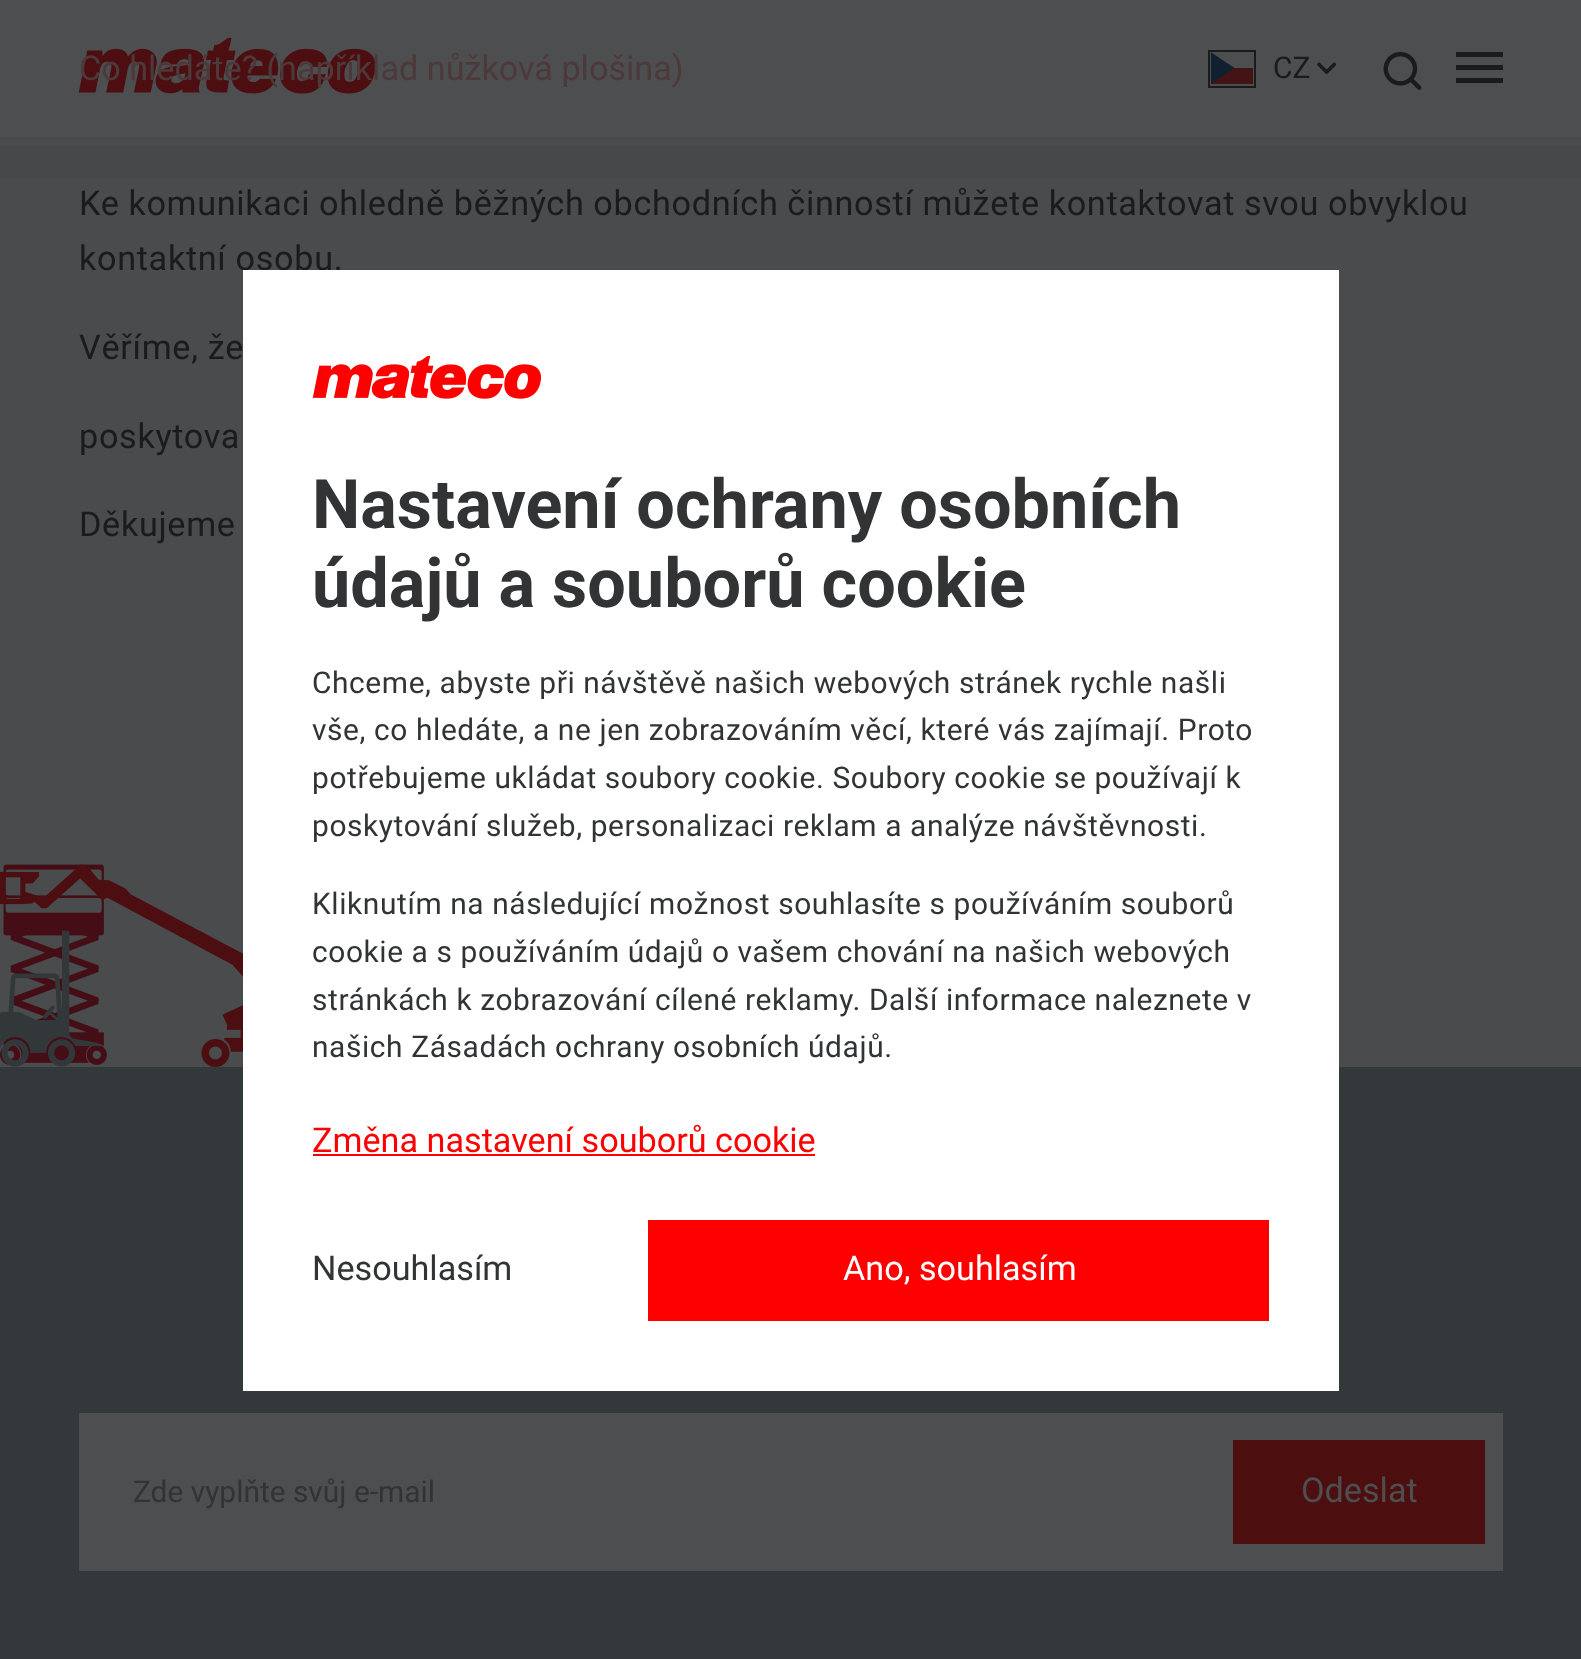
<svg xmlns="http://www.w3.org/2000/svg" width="1581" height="1659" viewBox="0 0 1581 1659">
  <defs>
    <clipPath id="clip1"><path d="M1211 52h42v34H1211z"/></clipPath>
    <linearGradient id="g1" gradientUnits="userSpaceOnUse" x1="791" y1="137" x2="791" y2="367"><stop offset="0" stop-color="#1a1b1d" stop-opacity="0.06"/><stop offset="1" stop-color="#1a1b1d" stop-opacity="0"/></linearGradient>
  </defs>
  <rect width="100%" height="100%" fill="#494b4c"/>
  <path d="M0 0h1581v137H0z" fill="#4d4e50"/>
  <image x="78" y="37" width="298" height="57" href="img/1.png"/>
  <path d="M1211 68h42v16H1211z" fill="#431316"/>
  <g clip-path="url(#clip1)">
    <path d="M1234.5 68L1210.5 52V84Z" fill="#11202f"/>
  </g>
  <path d="M1209 51h46v36H1209z" fill="none" stroke="#1a1b1d" stroke-width="2"/>
  <image x="1317" y="62" width="20" height="13" href="img/2.png"/>
  <image x="1383" y="52" width="39" height="38" href="img/3.png"/>
  <path d="M1456 52H1503V57H1456ZM1456 70V65H1503V70ZM1456 83V78H1503V83Z" fill="#1a1b1d"/>
  <path d="M0 146h1581v33H0z" fill="url(#g1)"/>
  <image x="0" y="864" width="107" height="201" href="img/4.png"/>
  <image x="0" y="930" width="103" height="137" href="img/6.png"/>
  <image x="0" y="864" width="243" height="203" href="img/5.png"/>
  <path d="M0 1067h1581v592H0z" fill="#33383a"/>
  <path d="M79 1413h1424v158H79z" fill="#4d4e50"/>
  <path d="M1233 1440h252v104H1233z" fill="#4d0e10"/>
  <text x="79" y="80" font-family="Roboto" font-size="34.2" fill="#4d393a">Co hledáte? (například nůžková plošina)</text>
  <text x="1273" y="78" font-family="Roboto" font-size="29.9" fill="#1a1b1d">CZ</text>
  <g font-family="Roboto" font-size="34.2" letter-spacing="0.68" fill="#1a1b1d">
    <text x="79" y="215" word-spacing="-0.25">Ke komunikaci ohledně běžných obchodních činností můžete kontaktovat svou obvyklou</text>
    <text x="79" y="270">kontaktní osobu.</text>
    <text x="79" y="359">Věříme, že</text>
    <text x="79" y="448" word-spacing="-1">poskytova</text>
    <text x="79" y="536">Děkujeme</text>
  </g>
  <text x="133" y="1502" font-family="Roboto" font-size="29.9" fill="#313334">Zde vyplňte svůj e-mail</text>
  <text x="1301" y="1502" font-family="Roboto" font-size="34.2" fill="#4d4e50">Odeslat</text>
  <path d="M243 270h1096v1121H243z" fill="#fff"/>
  <image x="312" y="355" width="229" height="44" href="img/7.png"/>
  <g font-family="Roboto" font-size="68.4" font-weight="bold" fill="#313334">
    <text x="312" y="528">Nastavení ochrany osobních</text>
    <text x="312" y="607">údajů a souborů cookie</text>
  </g>
  <g font-family="Roboto" font-size="29.9" letter-spacing="0.6" fill="#313334">
    <text x="312" y="693">Chceme, abyste při návštěvě našich webových stránek rychle našli</text>
    <text x="312" y="740">vše, co hledáte, a ne jen zobrazováním věcí, které vás zajímají. Proto</text>
    <text x="312" y="788">potřebujeme ukládat soubory cookie. Soubory cookie se používají k</text>
    <text x="312" y="836">poskytování služeb, personalizaci reklam a analýze návštěvnosti.</text>
    <text x="312" y="914">Kliknutím na následující možnost souhlasíte s používáním souborů</text>
    <text x="312" y="962">cookie a s používáním údajů o vašem chování na našich webových</text>
    <text x="312" y="1010">stránkách k zobrazování cílené reklamy. Další informace naleznete v</text>
    <text x="312" y="1057">našich Zásadách ochrany osobních údajů.</text>
  </g>
  <text x="312" y="1152" font-family="Roboto" font-size="34.2" fill="#f00">Změna nastavení souborů cookie</text>
  <path d="M313 1154h502v2H313z" fill="#f00"/>
  <text x="312" y="1280" font-family="Roboto" font-size="34.2" fill="#313334">Nesouhlasím</text>
  <path d="M648 1220h621v101H648z" fill="#f00"/>
  <text x="843" y="1280" font-family="Roboto" font-size="34.2" fill="#fff">Ano, souhlasím</text>
</svg>
